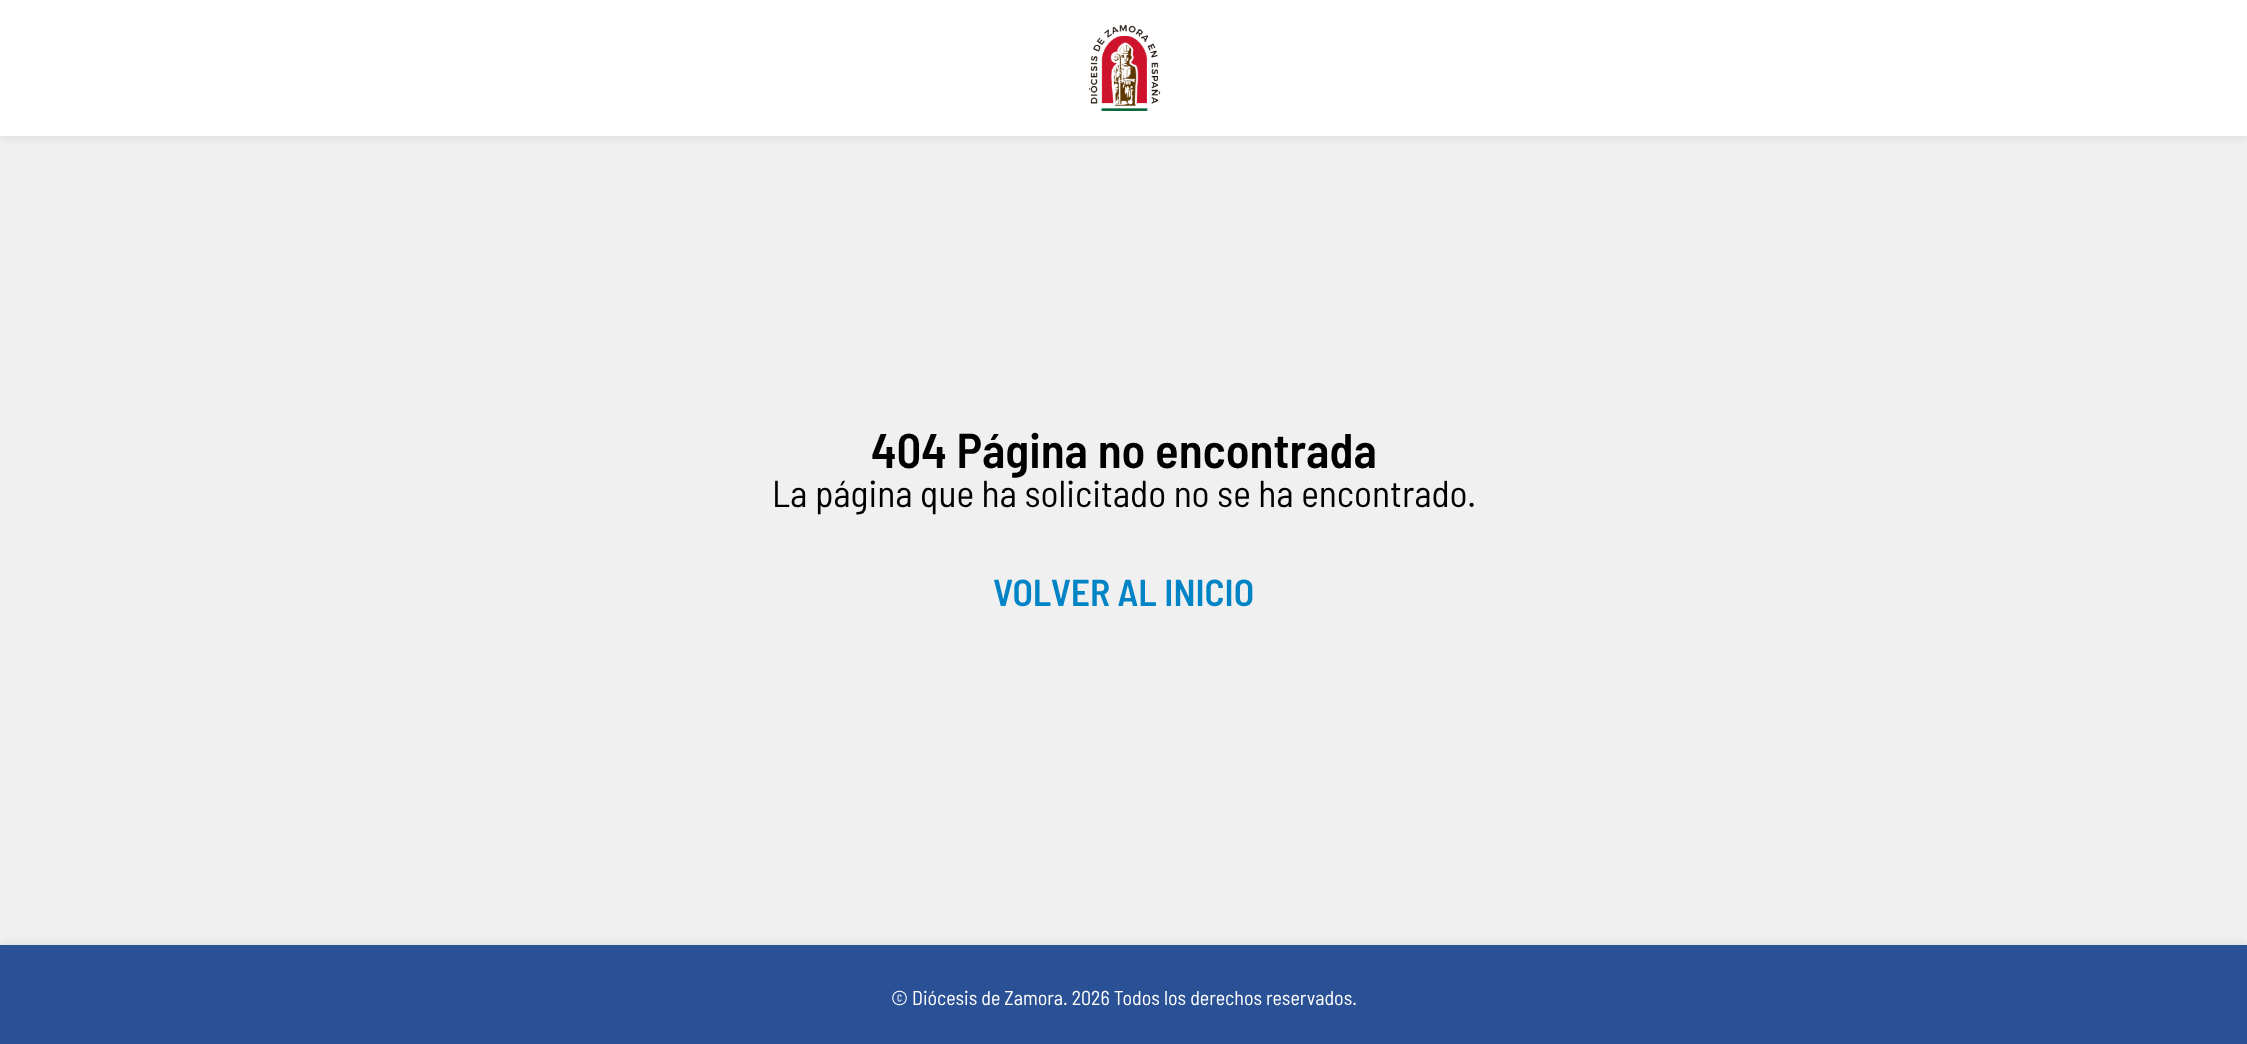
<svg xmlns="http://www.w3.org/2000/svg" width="2247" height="1044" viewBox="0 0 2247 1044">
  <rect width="100%" height="100%" fill="#f0f0f0"/>
  <path d="M0 0h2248v136H0z" fill="#0000001a" filter="blur(6px)"/>
  <path d="M0 0h2247v136H0z" fill="#fff"/>
  <image x="1088" y="25" width="73" height="86" href="img/1.png"/>
  <path d="M0 945h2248v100H0z" fill="#0000001a" filter="blur(6px)"/>
  <path d="M0 945h2247v99H0z" fill="#2a5196"/>
  <text x="871" y="468" font-family="Barlow Semi Condensed" font-size="48.75" font-weight="600" fill="#000">404 Página no encontrada</text>
  <text x="772" y="507" font-family="Barlow Semi Condensed" font-size="37.5" fill="#000">La página que ha solicitado no se ha encontrado.</text>
  <text x="993" y="606" font-family="Barlow Semi Condensed" font-size="37.5" font-weight="600" fill="#0084c5">VOLVER AL INICIO</text>
  <text x="891" y="1005" font-family="Barlow Semi Condensed" font-size="20" fill="#fff">© Diócesis de Zamora. 2026 Todos los derechos reservados.</text>
</svg>
